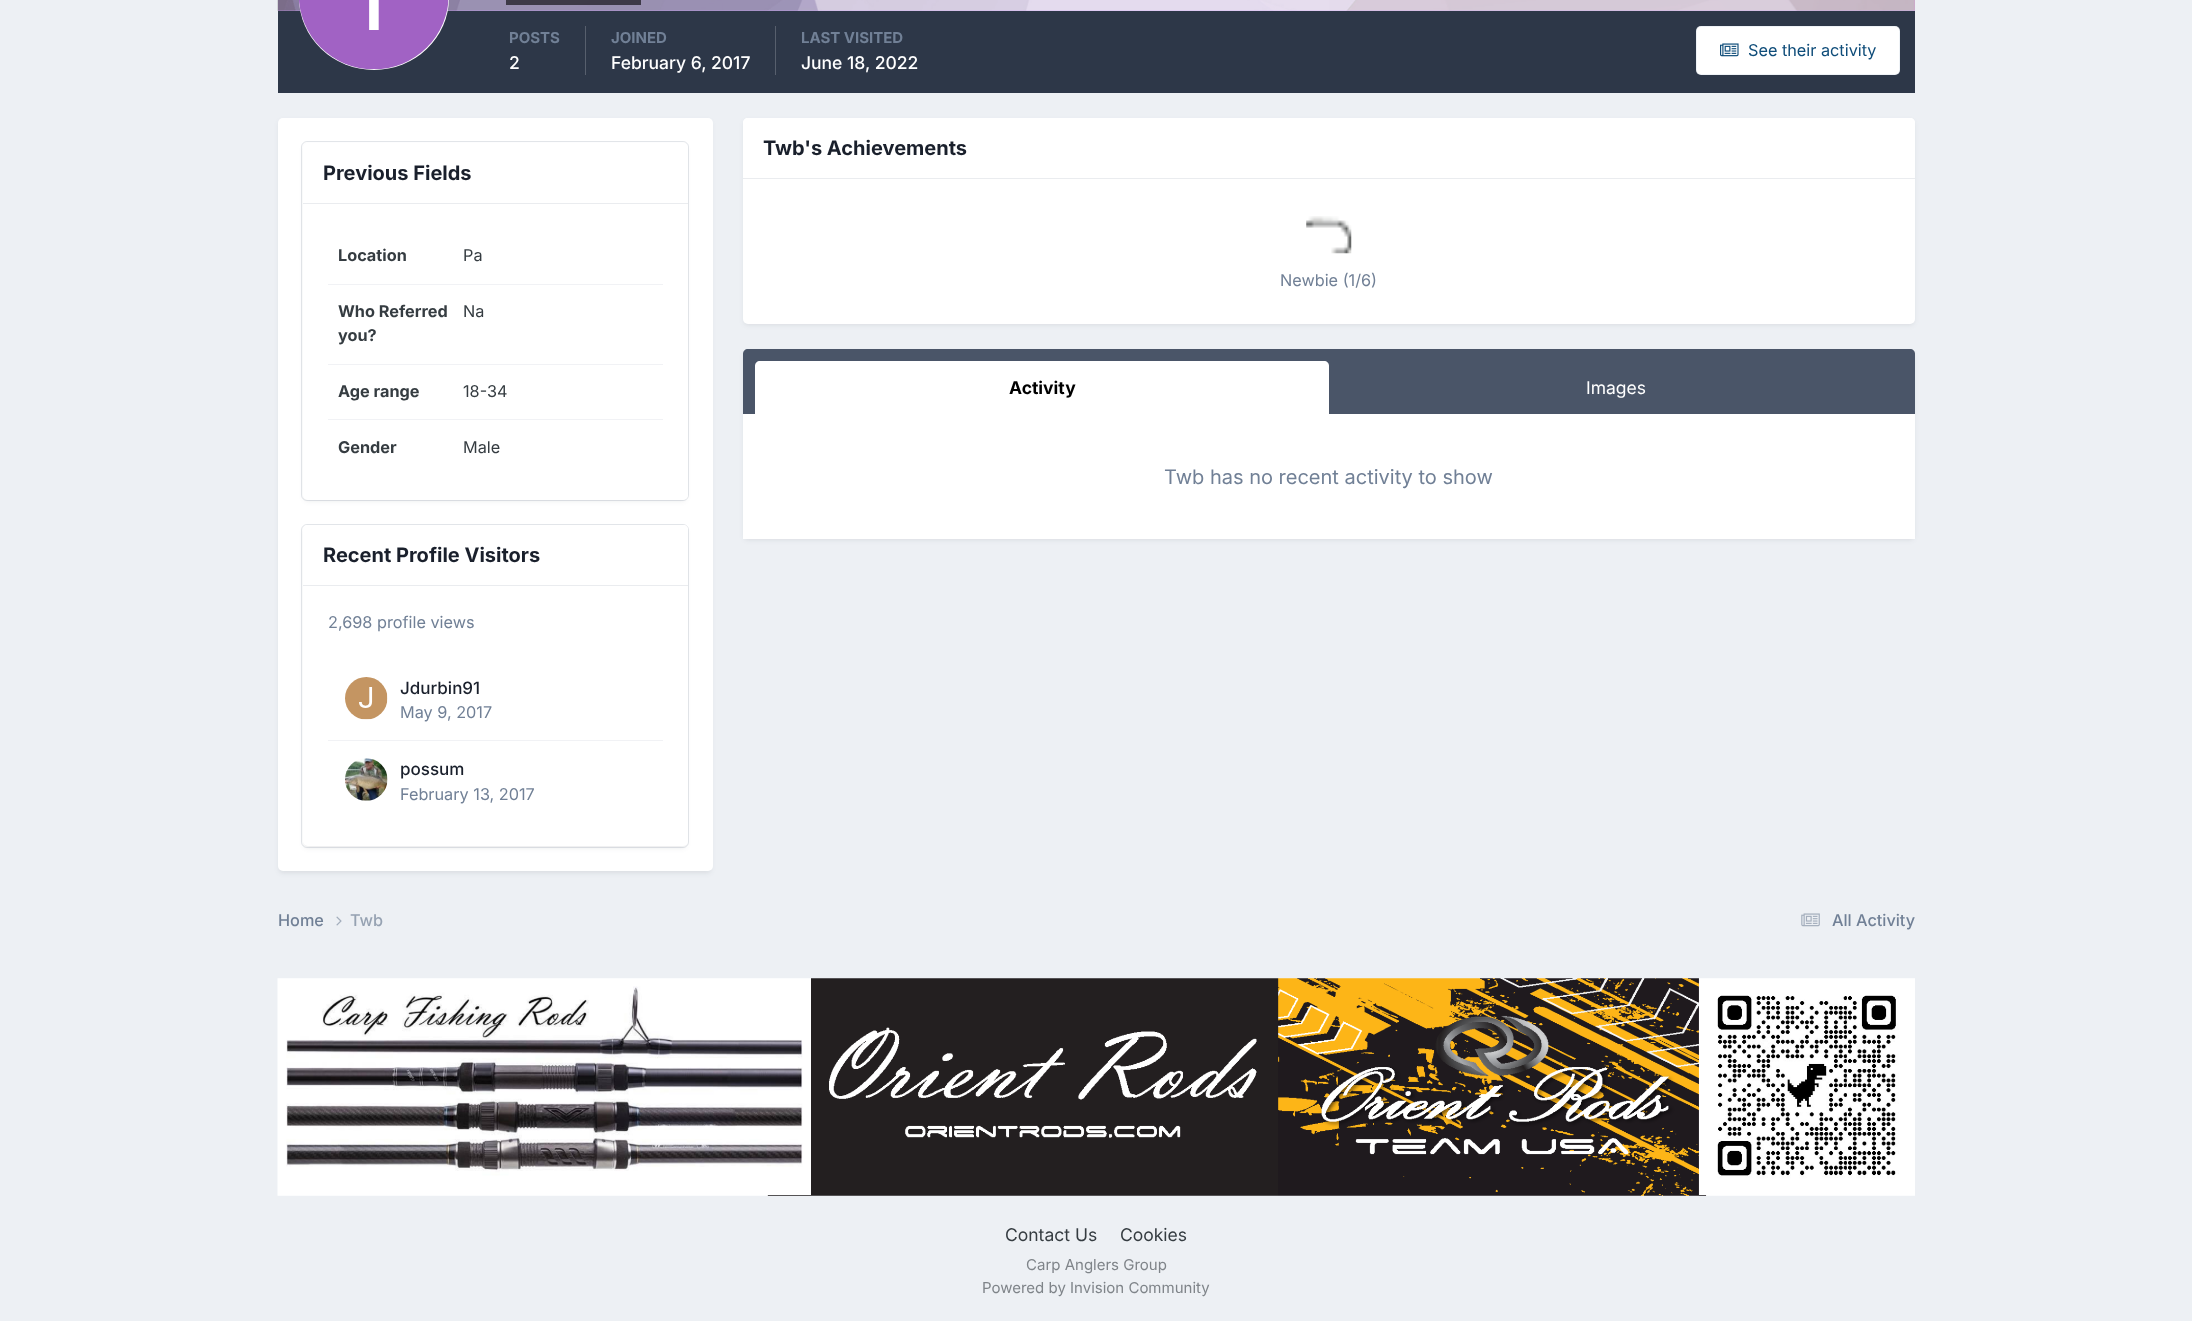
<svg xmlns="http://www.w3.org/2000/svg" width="2192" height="1321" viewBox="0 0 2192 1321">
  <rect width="100%" height="100%" fill="#edf0f4"/>
  <path d="M278 0h1637v11H278z" fill="#ce99ff"/>
  <image x="277" y="0" width="1638" height="11" href="img/2.png"/>
  <path d="M278 11h1637v82H278z" fill="#2d3748"/>
  <rect x="299" y="-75" width="150" height="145" rx="75" fill="#fff"/>
  <image x="299" y="0" width="150" height="70" href="img/1.png"/>
  <path d="M506 0h135v5H506z" fill="#00000099"/>
  <path d="M585 26h1v49H585z" fill="#575f6d"/>
  <path d="M775 26h1v49H775z" fill="#575f6d"/>
  <rect x="1696" y="26" width="204" height="49" rx="5" fill="#fff"/>
  <rect x="1696.5" y="26.5" width="203" height="48" rx="4.5" fill="none" stroke="#0e4c7912"/>
  <image x="1720" y="43" width="19" height="14" href="img/3.png"/>
  <rect x="279" y="121" width="432" height="752" rx="4" fill="#2d37481a" filter="blur(2.5px)"/>
  <rect x="278" y="118" width="435" height="753" rx="5" fill="#fff"/>
  <rect x="304" y="146" width="382" height="355" rx="4" fill="#2d37481a" filter="blur(2.5px)"/>
  <rect x="301.5" y="141.5" width="387" height="359" rx="5.5" fill="none" stroke="#71809633"/>
  <rect x="303" y="143" width="385" height="357" rx="5" fill="#fff"/>
  <path d="M303 203h385v1H303z" fill="#eaecef"/>
  <path d="M328 284h335v1H328z" fill="#f1f2f5"/>
  <path d="M328 364h335v1H328z" fill="#f1f2f5"/>
  <path d="M328 419h335v1H328z" fill="#f1f2f5"/>
  <rect x="304" y="529" width="382" height="319" rx="4" fill="#2d37481a" filter="blur(2.5px)"/>
  <rect x="301.5" y="524.5" width="387" height="323" rx="5.5" fill="none" stroke="#71809633"/>
  <rect x="303" y="525" width="385" height="321" rx="5" fill="#fff"/>
  <path d="M308 525H683C686 525 688 527 688 530V586H303V530C303 527 305 525 308 525Z" fill="#fff"/>
  <path d="M303 585h385v1H303z" fill="#eaecef"/>
  <path d="M328 740h335v1H328z" fill="#f1f2f5"/>
  <image x="345" y="677" width="43" height="43" href="img/4.png"/>
  <image x="345" y="758" width="43" height="43" href="img/5.png"/>
  <rect x="744" y="121" width="1170" height="204" rx="4" fill="#2d37481a" filter="blur(2.5px)"/>
  <rect x="743" y="118" width="1172" height="206" rx="5" fill="#fff"/>
  <path d="M748 118H1910C1913 118 1915 120 1915 123V179H743V123C743 120 745 118 748 118Z" fill="#fff"/>
  <path d="M743 178h1172v1H743z" fill="#eaecef"/>
  <image x="1306" y="216" width="46" height="38" href="img/6.png"/>
  <rect x="744" y="353" width="1170" height="187" rx="4" fill="#2d37481a" filter="blur(2.5px)"/>
  <path d="M748 349H1910C1913 349 1915 351 1915 354V414H743V354C743 351 745 349 748 349Z" fill="#4a5568"/>
  <path d="M760 361H1324C1327 361 1329 363 1329 366V414H755V366C755 363 757 361 760 361Z" fill="#fff"/>
  <path d="M743 414h1172v125H743z" fill="#fff"/>
  <image x="336" y="916" width="6" height="10" href="img/7.png"/>
  <image x="1801" y="913" width="19" height="14" href="img/8.png"/>
  <image x="277" y="978" width="1638" height="218" href="img/9.png"/>
  <text x="509" y="43" font-family="Inter" font-size="15" font-weight="bold" fill="#718096">POSTS</text>
  <text x="509" y="69" font-family="Inter" font-size="17.5" font-weight="500" fill="#fff">2</text>
  <text x="611" y="43" font-family="Inter" font-size="15" font-weight="bold" fill="#718096">JOINED</text>
  <text x="611" y="69" font-family="Inter" font-size="17.5" font-weight="500" fill="#fff">February 6, 2017</text>
  <text x="801" y="43" font-family="Inter" font-size="15" font-weight="bold" fill="#718096">LAST VISITED</text>
  <text x="801" y="69" font-family="Inter" font-size="17.5" font-weight="500" fill="#fff">June 18, 2022</text>
  <text x="1748" y="56" font-family="Inter" font-size="16.25" fill="#0e4c79">See their activity</text>
  <text x="323" y="180" font-family="Inter" font-size="20" font-weight="bold" fill="#1a202c">Previous Fields</text>
  <text x="338" y="261" font-family="Inter" font-size="16.25" font-weight="bold" fill="#353c41">Location</text>
  <text x="463" y="261" font-family="Inter" font-size="16.25" fill="#353c41">Pa</text>
  <g font-family="Inter" font-size="16.25" font-weight="bold" fill="#353c41">
    <text x="338" y="317">Who Referred</text>
    <text x="338" y="341">you?</text>
  </g>
  <text x="463" y="317" font-family="Inter" font-size="16.25" fill="#353c41">Na</text>
  <text x="338" y="397" font-family="Inter" font-size="16.25" font-weight="bold" fill="#353c41">Age range</text>
  <text x="463" y="397" font-family="Inter" font-size="16.25" fill="#353c41">18-34</text>
  <text x="338" y="453" font-family="Inter" font-size="16.25" font-weight="bold" fill="#353c41">Gender</text>
  <text x="463" y="453" font-family="Inter" font-size="16.25" fill="#353c41">Male</text>
  <text x="323" y="562" font-family="Inter" font-size="20" font-weight="bold" fill="#1a202c">Recent Profile Visitors</text>
  <text x="328" y="628" font-family="Inter" font-size="16.25" fill="#718096">2,698 profile views</text>
  <text x="400" y="694" font-family="Inter" font-size="17" font-weight="500" fill="#1a202c">Jdurbin91</text>
  <text x="400" y="718" font-family="Inter" font-size="16.25" fill="#718096">May 9, 2017</text>
  <text x="400" y="775" font-family="Inter" font-size="17" font-weight="500" fill="#1a202c">possum</text>
  <text x="400" y="800" font-family="Inter" font-size="16.25" fill="#718096">February 13, 2017</text>
  <text x="763" y="155" font-family="Inter" font-size="20" font-weight="bold" fill="#1a202c">Twb's Achievements</text>
  <text x="1280" y="286" font-family="Inter" font-size="16.25" fill="#718096">Newbie (1/6)</text>
  <text x="1009" y="394" font-family="Inter" font-size="17.5" font-weight="bold" fill="#000">Activity</text>
  <text x="1586" y="394" font-family="Inter" font-size="17.5" fill="#fff">Images</text>
  <text x="1164" y="484" font-family="Inter" font-size="20" fill="#718096">Twb has no recent activity to show</text>
  <text x="278" y="926" font-family="Inter" font-size="16.25" font-weight="500" fill="#718096">Home</text>
  <text x="350" y="926" font-family="Inter" font-size="16.25" font-weight="500" fill="#96a2b2">Twb</text>
  <text x="1832" y="926" font-family="Inter" font-size="16.25" font-weight="500" fill="#718096">All Activity</text>
  <g font-family="Inter" font-size="17.5" fill="#353c41">
    <text x="1005" y="1241">Contact Us</text>
    <text x="1120" y="1241">Cookies</text>
  </g>
  <g font-family="Inter" font-size="15" fill="#7f8489">
    <text x="1026" y="1270">Carp Anglers Group</text>
    <text x="982" y="1293">Powered by Invision Community</text>
  </g>
</svg>
